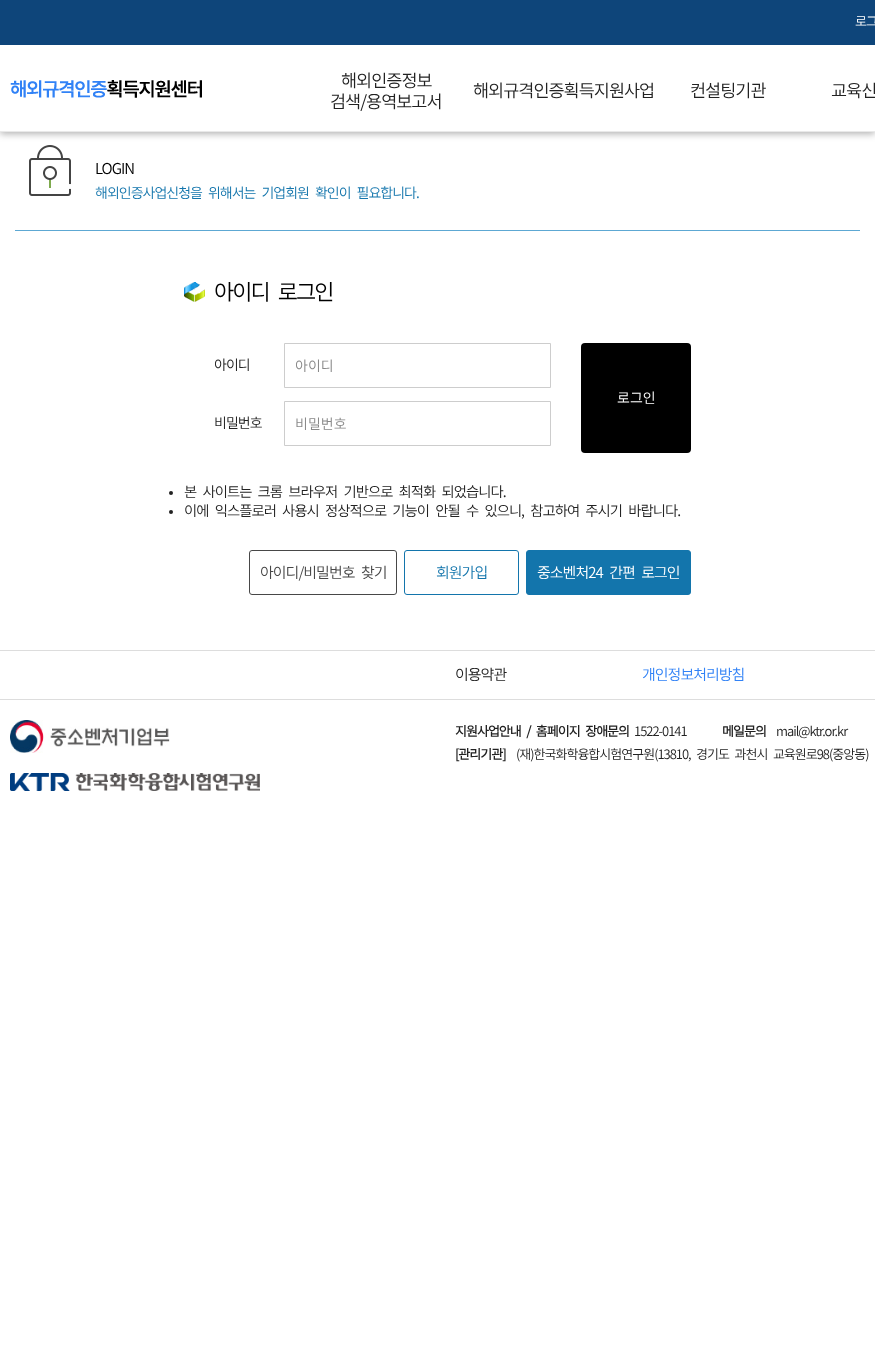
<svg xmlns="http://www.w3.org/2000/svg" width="875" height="1362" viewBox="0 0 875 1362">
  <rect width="100%" height="100%" fill="#fff"/>
  <image x="29" y="145" width="42" height="51" href="img/2.png"/>
  <path d="M0 2h875v132H0z" fill="#0000004d" filter="blur(3.5px)"/>
  <path d="M0 45h875v86H0z" fill="#fff"/>
  <path d="M0 0h875v45H0z" fill="#0e457a"/>
  <path d="M0 131h875v1H0z" fill="#e9e9e9"/>
  <image x="10" y="80" width="192" height="18" href="img/1.png"/>
  <path d="M15 230h845v1H15z" fill="#5da8d3"/>
  <image x="184" y="282" width="21" height="20" href="img/3.png"/>
  <path d="M284.5 343.5h266v44H284.5z" fill="none" stroke="#cdcdcd"/>
  <path d="M284.5 401.5h266v44H284.5z" fill="none" stroke="#cdcdcd"/>
  <rect x="581" y="343" width="110" height="110" rx="4" fill="#000"/>
  <circle cx="171" cy="493" r="2" fill="#222"/>
  <circle cx="171" cy="512" r="2" fill="#222"/>
  <rect x="249.5" y="550.5" width="147" height="44" rx="2.5" fill="none" stroke="#474747"/>
  <rect x="404.5" y="550.5" width="114" height="44" rx="2.5" fill="none" stroke="#1375ac"/>
  <rect x="526.5" y="550.5" width="164" height="44" rx="2.5" fill="#1375ac" stroke="#1375ac"/>
  <path d="M0 650h875v1H0z" fill="#ddd"/>
  <path d="M0 699h875v1H0z" fill="#ddd"/>
  <image x="10" y="720" width="160" height="33" href="img/4.png"/>
  <image x="10" y="773" width="250" height="18" href="img/5.png"/>
  <text x="855" y="26" font-family="Noto Sans CJK KR" font-size="13" font-weight="300" letter-spacing="-1" fill="#fff">로그</text>
  <g font-family="Noto Sans CJK KR" font-size="17.5" font-weight="300" letter-spacing="-1" fill="#222">
    <text x="341" y="87">해외인증정보</text>
    <text x="330" y="108">검색/용역보고서</text>
    <text x="473" y="97">해외규격인증획득지원사업</text>
    <text x="690" y="97">컨설팅기관</text>
    <text x="831" y="97">교육신</text>
  </g>
  <text x="95" y="174" font-family="Noto Sans CJK KR" font-size="15" font-weight="300" letter-spacing="-1" fill="#000">LOGIN</text>
  <text x="95" y="198" font-family="Noto Sans CJK KR" font-size="14" font-weight="300" letter-spacing="-1" fill="#1375ac">해외인증사업신청을 위해서는 기업회원 확인이 필요합니다.</text>
  <text x="214" y="300" font-family="Noto Sans CJK KR" font-size="22" font-weight="300" letter-spacing="-2" fill="#000">아이디 로그인</text>
  <text x="214" y="370" font-family="Noto Sans CJK KR" font-size="14" font-weight="300" letter-spacing="-1" fill="#222">아이디</text>
  <text x="295" y="371" font-family="Noto Sans CJK KR" font-size="14" font-weight="300" fill="#888">아이디</text>
  <text x="214" y="428" font-family="Noto Sans CJK KR" font-size="14" font-weight="300" letter-spacing="-1" fill="#222">비밀번호</text>
  <text x="295" y="429" font-family="Noto Sans CJK KR" font-size="14" font-weight="300" fill="#888">비밀번호</text>
  <text x="617" y="403" font-family="Noto Sans CJK KR" font-size="14" font-weight="300" fill="#fff">로그인</text>
  <g font-family="Noto Sans CJK KR" font-size="14.4" font-weight="300" letter-spacing="-1" fill="#222">
    <text x="184" y="497">본 사이트는 크롬 브라우저 기반으로 최적화 되었습니다.</text>
    <text x="184" y="516">이에 익스플로러 사용시 정상적으로 기능이 안될 수 있으니, 참고하여 주시기 바랍니다.</text>
  </g>
  <text x="260" y="578" font-family="Noto Sans CJK KR" font-size="15" font-weight="300" letter-spacing="-1" fill="#474747">아이디/비밀번호 찾기</text>
  <text x="436" y="578" font-family="Noto Sans CJK KR" font-size="15" font-weight="300" letter-spacing="-1" fill="#1375ac">회원가입</text>
  <text x="537" y="578" font-family="Noto Sans CJK KR" font-size="15" font-weight="300" letter-spacing="-1" fill="#fff">중소벤처24 간편 로그인</text>
  <text x="455" y="680" font-family="Noto Sans CJK KR" font-size="15" font-weight="300" letter-spacing="-1" fill="#222">이용약관</text>
  <text x="642" y="680" font-family="Noto Sans CJK KR" font-size="15" font-weight="300" letter-spacing="-1" fill="#3182f6">개인정보처리방침</text>
  <text x="455" y="736" font-family="Noto Sans CJK KR" font-size="13" font-weight="bold" letter-spacing="-1" fill="#222">지원사업안내 / 홈페이지 장애문의</text>
  <text x="634" y="736" font-family="Noto Sans CJK KR" font-size="13" font-weight="300" letter-spacing="-1" fill="#222">1522-0141</text>
  <text x="722" y="736" font-family="Noto Sans CJK KR" font-size="13" font-weight="bold" letter-spacing="-1" fill="#222">메일문의</text>
  <text x="776" y="736" font-family="Noto Sans CJK KR" font-size="13" font-weight="300" letter-spacing="-1" fill="#222">mail@ktr.or.kr</text>
  <text x="455" y="759" font-family="Noto Sans CJK KR" font-size="13" font-weight="bold" letter-spacing="-1" fill="#222">[관리기관]</text>
  <text x="516" y="759" font-family="Noto Sans CJK KR" font-size="13" font-weight="300" letter-spacing="-1" fill="#222">(재)한국화학융합시험연구원(13810, 경기도 과천시 교육원로98(중앙동)</text>
</svg>
